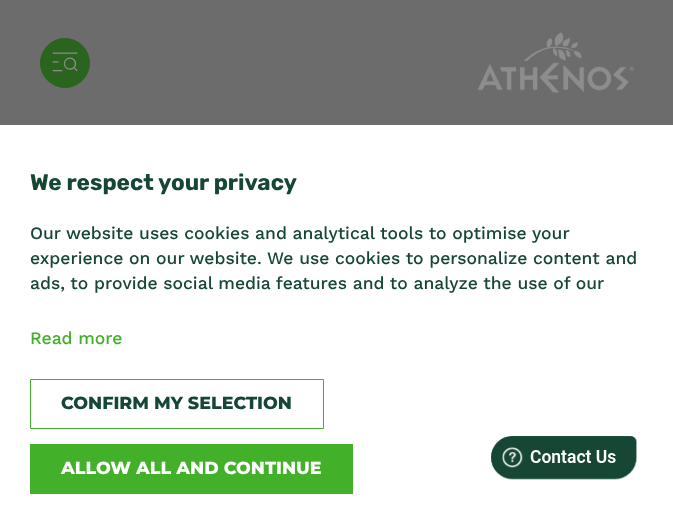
<svg xmlns="http://www.w3.org/2000/svg" width="673" height="523" viewBox="0 0 673 523">
  <rect width="100%" height="100%" fill="#6c6c6c"/>
  <circle cx="65" cy="63" r="24.5" fill="#2b641e" stroke="#2b641e"/>
  <image x="52" y="52" width="26" height="20" href="img/1.png"/>
  <image x="477" y="32" width="157" height="61" href="img/2.png"/>
  <path d="M0 125h673v398H0z" fill="#fff"/>
  <path d="M30.5 379.5h293v49H30.5z" fill="none" stroke="#43b02a"/>
  <path d="M30 444h323v50H30z" fill="#43b02a"/>
  <image x="491" y="436" width="146" height="44" href="img/3.png"/>
  <image x="491" y="436" width="146" height="44" href="img/4.png"/>
  <text x="30" y="190" font-family="Rubik" font-size="22.5" font-weight="300" fill="#154734">We respect your privacy</text>
  <g font-family="Work Sans" font-size="17.5" font-weight="500" fill="#154734">
    <text x="30" y="239">Our website uses cookies and analytical tools to optimise your</text>
    <text x="30" y="264">experience on our website. We use cookies to personalize content and</text>
    <text x="30" y="289">ads, to provide social media features and to analyze the use of our</text>
  </g>
  <text x="30" y="344" font-family="Work Sans" font-size="17.5" font-weight="500" fill="#43b02a">Read more</text>
  <text x="61" y="409" font-family="Montserrat" font-size="17.5" font-weight="100" fill="#154734">CONFIRM MY SELECTION</text>
  <text x="61" y="474" font-family="Montserrat" font-size="17.5" font-weight="100" fill="#fff">ALLOW ALL AND CONTINUE</text>
</svg>
